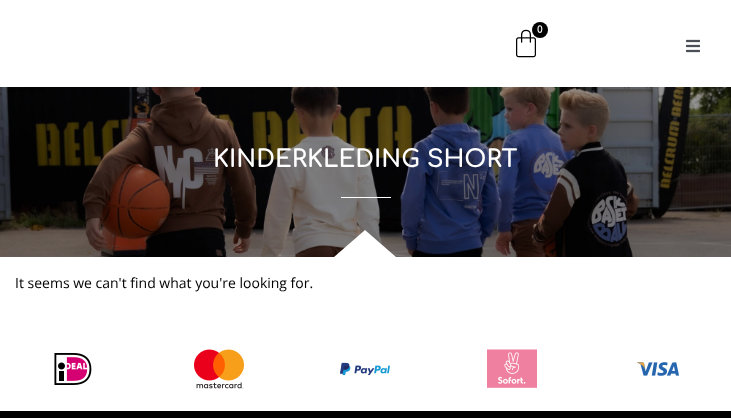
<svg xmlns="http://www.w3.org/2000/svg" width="731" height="418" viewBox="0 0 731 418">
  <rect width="100%" height="100%" fill="#fff"/>
  <image x="516" y="29" width="20" height="29" href="img/1.png"/>
  <circle cx="540" cy="30" r="8" fill="#000"/>
  <image x="686" y="39" width="14" height="14" href="img/2.png"/>
  <image x="0" y="87" width="731" height="170" href="img/3.png"/>
  <path d="M341 197h50v1H341z" fill="#fff"/>
  <path d="M365 230L396 257H334Z" fill="#fff"/>
  <image x="54" y="353" width="38" height="32" href="img/4.png"/>
  <image x="194" y="349" width="50" height="40" href="img/5.png"/>
  <image x="340" y="362" width="50" height="14" href="img/6.png"/>
  <image x="487" y="349" width="50" height="39" href="img/7.png"/>
  <image x="637" y="362" width="42" height="14" href="img/8.png"/>
  <path d="M0 411h731v7H0z" fill="#000"/>
  <text x="537" y="33" font-family="Comfortaa" font-size="10" font-weight="bold" fill="#fff">0</text>
  <text x="213" y="167" font-family="Comfortaa" font-size="24" font-weight="bold" fill="#fff">KINDERKLEDING SHORT</text>
  <text x="15" y="288" font-family="Open Sans" font-size="14" fill="#000">It seems we can't find what you're looking for.</text>
</svg>
